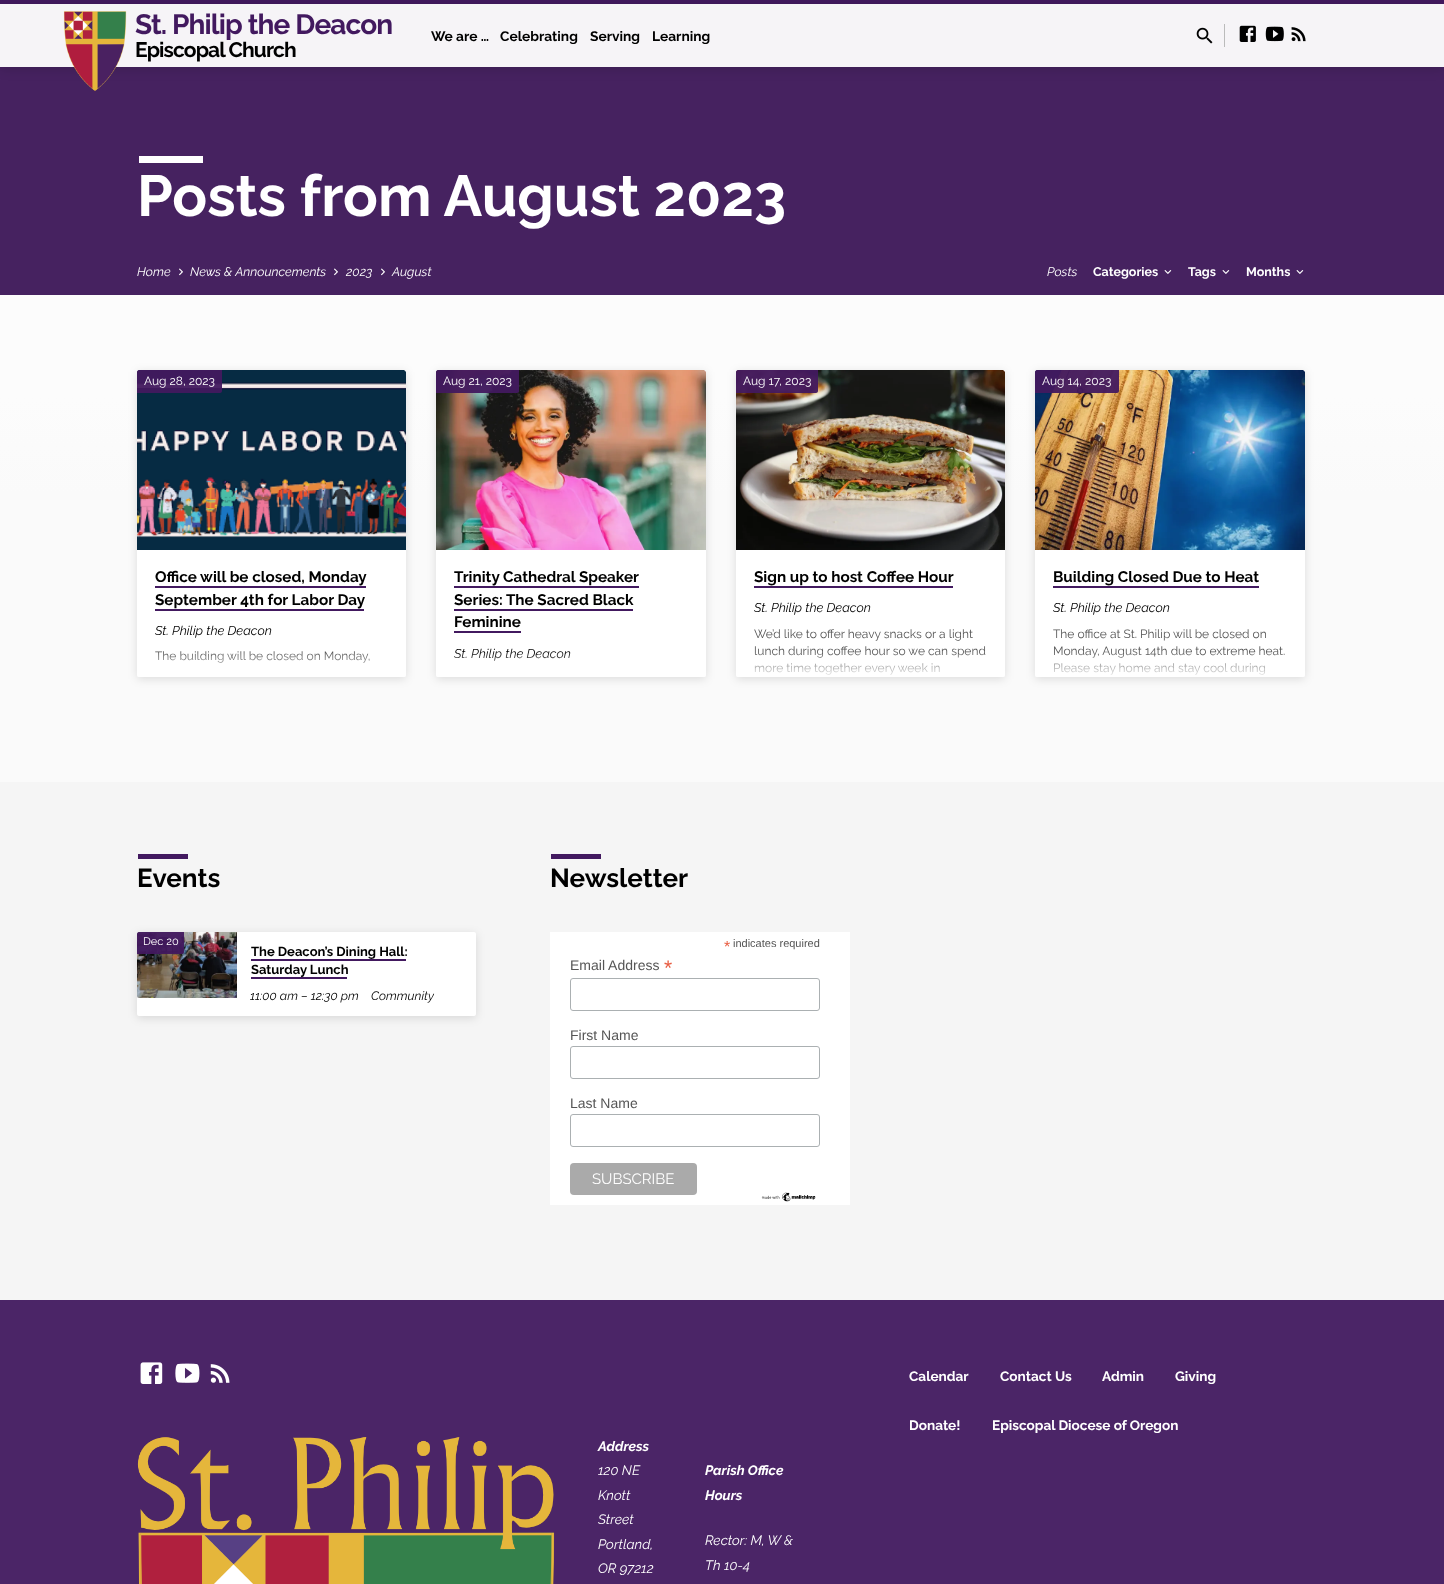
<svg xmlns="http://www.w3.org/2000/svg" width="1444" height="1584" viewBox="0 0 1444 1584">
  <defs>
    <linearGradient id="g1" gradientUnits="userSpaceOnUse" x1="722" y1="295" x2="722" y2="782"><stop offset="0.21" stop-color="#fcfcfc"/><stop offset="0.41" stop-color="#fafafa"/></linearGradient>
    <linearGradient id="g2" gradientUnits="userSpaceOnUse" x1="272" y1="652" x2="272" y2="677"><stop offset="0" stop-color="#fff" stop-opacity="0"/><stop offset="1" stop-color="#fff" stop-opacity="0.9"/></linearGradient>
    <linearGradient id="g3" gradientUnits="userSpaceOnUse" x1="571" y1="652" x2="571" y2="677"><stop offset="0" stop-color="#fff" stop-opacity="0"/><stop offset="1" stop-color="#fff" stop-opacity="0.9"/></linearGradient>
    <linearGradient id="g4" gradientUnits="userSpaceOnUse" x1="871" y1="652" x2="871" y2="677"><stop offset="0" stop-color="#fff" stop-opacity="0"/><stop offset="1" stop-color="#fff" stop-opacity="0.9"/></linearGradient>
    <linearGradient id="g5" gradientUnits="userSpaceOnUse" x1="1170" y1="652" x2="1170" y2="677"><stop offset="0" stop-color="#fff" stop-opacity="0"/><stop offset="1" stop-color="#fff" stop-opacity="0.9"/></linearGradient>
  </defs>
  <rect width="100%" height="100%" fill="#fff"/>
  <path d="M0 0h1444v4H0z" fill="#42195f"/>
  <path d="M0 67h1444v228H0z" fill="#462260"/>
  <path d="M0 6h1444v63H0z" fill="#00000024" filter="blur(6px)"/>
  <path d="M0 4h1444v63H0z" fill="#f6f4f7"/>
  <image x="63" y="11" width="64" height="80" href="img/1.png"/>
  <image x="1196" y="27" width="17" height="17" href="img/2.png"/>
  <path d="M1224 24h1v23H1224z" fill="#bbb"/>
  <image x="1239" y="25" width="17" height="17" href="img/3.png"/>
  <image x="1265" y="26" width="19" height="16" href="img/4.png"/>
  <image x="1291" y="27" width="15" height="15" href="img/5.png"/>
  <path d="M139 156h64v7H139z" fill="#fff"/>
  <image x="179" y="268" width="4" height="8" href="img/6.png"/>
  <image x="334" y="268" width="4" height="8" href="img/6.png"/>
  <image x="381" y="268" width="4" height="8" href="img/6.png"/>
  <image x="1164" y="270" width="8" height="4" href="img/7.png"/>
  <image x="1222" y="270" width="8" height="4" href="img/7.png"/>
  <image x="1296" y="270" width="8" height="4" href="img/7.png"/>
  <path d="M0 295h1444v487H0z" fill="url(#g1)"/>
  <rect x="137" y="372" width="269" height="307" rx="2" fill="#0000001f" filter="blur(5px)"/>
  <rect x="137" y="370" width="269" height="307" rx="2" fill="#fff"/>
  <image x="137" y="370" width="269" height="180" href="img/8.png"/>
  <path d="M139 370H222V391C222 392 221 393 220 393H137V372C137 371 138 370 139 370Z" fill="#42195ff2"/>
  <path d="M155 586h211v2H155z" fill="#42195f"/>
  <path d="M155 609h209v2H155z" fill="#42195f"/>
  <rect x="436" y="372" width="270" height="307" rx="2" fill="#0000001f" filter="blur(5px)"/>
  <rect x="436" y="370" width="270" height="307" rx="2" fill="#fff"/>
  <image x="436" y="370" width="270" height="180" href="img/9.png"/>
  <path d="M438 370H519V391C519 392 518 393 517 393H436V372C436 371 437 370 438 370Z" fill="#42195ff2"/>
  <path d="M454 586h185v2H454z" fill="#42195f"/>
  <path d="M454 609h179v2H454z" fill="#42195f"/>
  <path d="M454 631h67v2H454z" fill="#42195f"/>
  <rect x="736" y="372" width="269" height="307" rx="2" fill="#0000001f" filter="blur(5px)"/>
  <rect x="736" y="370" width="269" height="307" rx="2" fill="#fff"/>
  <image x="736" y="370" width="269" height="180" href="img/10.png"/>
  <path d="M738 370H818V391C818 392 817 393 816 393H736V372C736 371 737 370 738 370Z" fill="#42195ff2"/>
  <path d="M754 586h199v2H754z" fill="#42195f"/>
  <rect x="1035" y="372" width="270" height="307" rx="2" fill="#0000001f" filter="blur(5px)"/>
  <rect x="1035" y="370" width="270" height="307" rx="2" fill="#fff"/>
  <image x="1035" y="370" width="270" height="180" href="img/11.png"/>
  <path d="M1037 370H1119V391C1119 392 1118 393 1117 393H1035V372C1035 371 1036 370 1037 370Z" fill="#42195ff2"/>
  <path d="M1053 586h206v2H1053z" fill="#42195f"/>
  <path d="M0 782h1444v518H0z" fill="#f5f5f5"/>
  <path d="M138 854h50v5H138z" fill="#42195f"/>
  <rect x="137" y="934" width="339" height="84" rx="2" fill="#0000001f" filter="blur(5px)"/>
  <rect x="137" y="932" width="339" height="84" rx="2" fill="#fff"/>
  <image x="137" y="932" width="100" height="66" href="img/12.png"/>
  <path d="M139 932H184V952C184 953 183 954 182 954H137V934C137 933 138 932 139 932Z" fill="#42195ff2"/>
  <path d="M251 959h155v2H251z" fill="#42195f"/>
  <path d="M251 977h96v2H251z" fill="#42195f"/>
  <path d="M551 854h50v5H551z" fill="#42195f"/>
  <path d="M550 932h300v273H550z" fill="#fff"/>
  <rect x="570.5" y="978.5" width="249" height="32" rx="2.5" fill="none" stroke="#abb0b2"/>
  <rect x="570.5" y="1046.5" width="249" height="32" rx="2.5" fill="none" stroke="#abb0b2"/>
  <rect x="570.5" y="1114.5" width="249" height="32" rx="2.5" fill="none" stroke="#abb0b2"/>
  <rect x="570" y="1163" width="127" height="32" rx="4" fill="#aaa"/>
  <image x="761" y="1192" width="55" height="10" href="img/13.png"/>
  <path d="M0 1300h1444v284H0z" fill="#4b2567"/>
  <image x="140" y="1362" width="23" height="22" href="img/14.png"/>
  <image x="175" y="1363" width="25" height="20" href="img/15.png"/>
  <image x="210" y="1364" width="20" height="19" href="img/16.png"/>
  <image x="137" y="1437" width="418" height="147" href="img/17.png"/>
  <text x="135" y="34" font-family="Raleway" font-size="28" font-weight="bold" letter-spacing="-0.9" fill="#42195f">St. Philip the Deacon</text>
  <text x="135" y="57" font-family="Raleway" font-size="21" font-weight="bold" letter-spacing="-0.9" fill="#000">Episcopal Church</text>
  <g font-family="Raleway" font-size="13.75" font-weight="bold" fill="#000">
    <text x="431" y="41">We are …</text>
    <text x="500" y="41">Celebrating</text>
    <text x="590" y="41">Serving</text>
    <text x="652" y="41">Learning</text>
  </g>
  <text x="137" y="216" font-family="Raleway" font-size="57.6" font-weight="bold" fill="#fff">Posts from August 2023</text>
  <g font-family="Raleway" font-size="12.5" font-style="italic" fill="#fff">
    <text x="137" y="276">Home</text>
    <text x="190" y="276">News &amp; Announcements</text>
    <text x="346" y="276">2023</text>
    <text x="392" y="276">August</text>
    <text x="1047" y="276">Posts</text>
  </g>
  <g font-family="Raleway" font-size="12.5" font-weight="bold" fill="#fff">
    <text x="1093" y="276">Categories</text>
    <text x="1188" y="276">Tags</text>
    <text x="1246" y="276">Months</text>
  </g>
  <text x="144" y="385" font-family="Raleway" font-size="12" fill="#fff">Aug 28, 2023</text>
  <g font-family="Raleway" font-size="15.25" font-weight="bold" fill="#000">
    <text x="155" y="582">Office will be closed, Monday</text>
    <text x="155" y="605">September 4th for Labor Day</text>
  </g>
  <text x="155" y="635" font-family="Raleway" font-size="12.75" font-style="italic" fill="#000">St. Philip the Deacon</text>
  <text x="155" y="660" font-family="Raleway" font-size="12" fill="#555">The building will be closed on Monday,</text>
  <path d="M137 652H406V675C406 676 405 677 404 677H139C138 677 137 676 137 675Z" fill="url(#g2)"/>
  <text x="443" y="385" font-family="Raleway" font-size="12" fill="#fff">Aug 21, 2023</text>
  <g font-family="Raleway" font-size="15.25" font-weight="bold" fill="#000">
    <text x="454" y="582">Trinity Cathedral Speaker</text>
    <text x="454" y="605">Series: The Sacred Black</text>
    <text x="454" y="627">Feminine</text>
  </g>
  <text x="454" y="658" font-family="Raleway" font-size="12.75" font-style="italic" fill="#000">St. Philip the Deacon</text>
  <path d="M436 652H706V675C706 676 705 677 704 677H438C437 677 436 676 436 675Z" fill="url(#g3)"/>
  <text x="743" y="385" font-family="Raleway" font-size="12" fill="#fff">Aug 17, 2023</text>
  <text x="754" y="582" font-family="Raleway" font-size="15.25" font-weight="bold" fill="#000">Sign up to host Coffee Hour</text>
  <text x="754" y="612" font-family="Raleway" font-size="12.75" font-style="italic" fill="#000">St. Philip the Deacon</text>
  <g font-family="Raleway" font-size="12" fill="#555">
    <text x="754" y="638">We’d like to offer heavy snacks or a light</text>
    <text x="754" y="655">lunch during coffee hour so we can spend</text>
    <text x="754" y="672">more time together every week in</text>
  </g>
  <path d="M736 652H1005V675C1005 676 1004 677 1003 677H738C737 677 736 676 736 675Z" fill="url(#g4)"/>
  <text x="1042" y="385" font-family="Raleway" font-size="12" fill="#fff">Aug 14, 2023</text>
  <text x="1053" y="582" font-family="Raleway" font-size="15.25" font-weight="bold" fill="#000">Building Closed Due to Heat</text>
  <text x="1053" y="612" font-family="Raleway" font-size="12.75" font-style="italic" fill="#000">St. Philip the Deacon</text>
  <g font-family="Raleway" font-size="12" fill="#555">
    <text x="1053" y="638">The office at St. Philip will be closed on</text>
    <text x="1053" y="655">Monday, August 14th due to extreme heat.</text>
    <text x="1053" y="672">Please stay home and stay cool during</text>
  </g>
  <path d="M1035 652H1305V675C1305 676 1304 677 1303 677H1037C1036 677 1035 676 1035 675Z" fill="url(#g5)"/>
  <text x="137" y="887" font-family="Raleway" font-size="26" font-weight="bold" fill="#000">Events</text>
  <text x="143" y="945" font-family="Raleway" font-size="11" fill="#fff">Dec 20</text>
  <g font-family="Raleway" font-size="13" font-weight="bold" fill="#000">
    <text x="251" y="956">The Deacon’s Dining Hall:</text>
    <text x="251" y="974">Saturday Lunch</text>
  </g>
  <g font-family="Raleway" font-size="12.25" font-style="italic" fill="#000">
    <text x="250" y="1000">11:00 am – 12:30 pm</text>
    <text x="371" y="1000">Community</text>
  </g>
  <text x="550" y="887" font-family="Raleway" font-size="26" font-weight="bold" fill="#000">Newsletter</text>
  <text x="724" y="952" font-family="Liberation Sans" font-size="16" fill="#e85c41">*</text>
  <text x="733" y="947" font-family="Liberation Sans" font-size="11" fill="#555">indicates required</text>
  <text x="570" y="970" font-family="Liberation Sans" font-size="14" fill="#555">Email Address</text>
  <text x="664" y="975" font-family="Liberation Sans" font-size="21" fill="#e85c41">*</text>
  <g font-family="Liberation Sans" font-size="14" fill="#555">
    <text x="570" y="1040">First Name</text>
    <text x="570" y="1108">Last Name</text>
  </g>
  <text x="592" y="1184" font-family="Raleway" font-size="15" fill="#fff">SUBSCRIBE</text>
  <g font-family="Raleway" font-size="13.6" font-weight="bold" fill="#fff">
    <text x="909" y="1381">Calendar</text>
    <text x="1000" y="1381">Contact Us</text>
    <text x="1102" y="1381">Admin</text>
    <text x="1175" y="1381">Giving</text>
    <text x="909" y="1430">Donate!</text>
    <text x="992" y="1430">Episcopal Diocese of Oregon</text>
  </g>
  <text x="598" y="1451" font-family="Raleway" font-size="13.6" font-weight="bold" font-style="italic" fill="#fff">Address</text>
  <g font-family="Raleway" font-size="13.6" font-style="italic" fill="#fff">
    <text x="598" y="1475">120 NE</text>
    <text x="598" y="1500">Knott</text>
    <text x="598" y="1524">Street</text>
    <text x="598" y="1549">Portland,</text>
    <text x="598" y="1573">OR 97212</text>
  </g>
  <g font-family="Raleway" font-size="13.6" font-weight="bold" font-style="italic" fill="#fff">
    <text x="705" y="1475">Parish Office</text>
    <text x="705" y="1500">Hours</text>
  </g>
  <g font-family="Raleway" font-size="13.6" font-style="italic" fill="#fff">
    <text x="705" y="1545">Rector: M, W &amp;</text>
    <text x="705" y="1570">Th 10-4</text>
  </g>
</svg>
